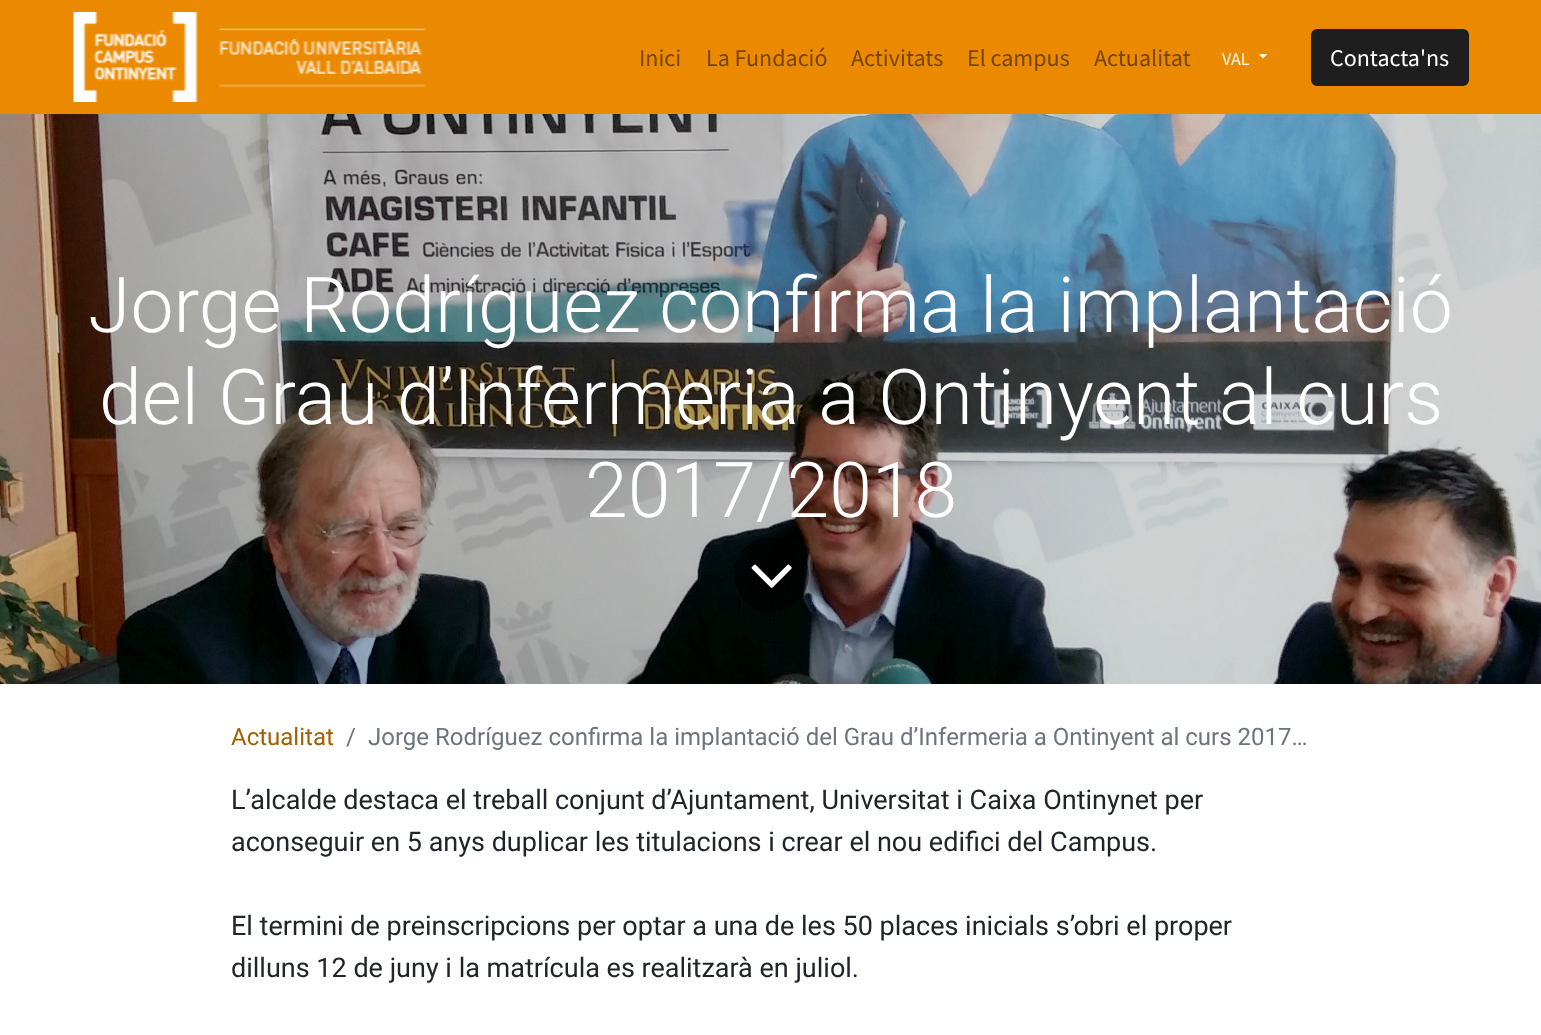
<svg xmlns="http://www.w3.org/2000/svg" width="1541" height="1035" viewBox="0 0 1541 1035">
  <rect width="100%" height="100%" fill="#fff"/>
  <path d="M0 0h1541v114H0z" fill="#eb8a00"/>
  <image x="73" y="12" width="353" height="90" href="img/1.png"/>
  <path d="M1258.5 54H1267.5L1263 58.5Z" fill="#fdf8ef"/>
  <rect x="1312" y="30" width="156" height="55" rx="5" fill="#1e1e1e" stroke="#1e1e1e" stroke-width="2"/>
  <image x="0" y="114" width="1541" height="570" href="img/2.png"/>
  <circle cx="771.5" cy="574.5" r="37.5" fill="#00000080"/>
  <image x="751" y="564" width="41" height="24" href="img/3.png"/>
  <g font-family="Source Sans Pro" font-size="24" fill="#764500">
    <text x="639" y="66">Inici</text>
    <text x="706" y="66">La Fundació</text>
    <text x="851" y="66">Activitats</text>
    <text x="967" y="66">El campus</text>
    <text x="1094" y="66">Actualitat</text>
  </g>
  <text x="1222" y="65" font-family="Source Sans Pro" font-size="18" fill="#fdf8ef">VAL</text>
  <text x="1330" y="66" font-family="Source Sans Pro" font-size="24" fill="#fff">Contacta'ns</text>
  <g font-family="Roboto" font-size="77" font-weight="300" fill="#fff">
    <text x="88" y="332">Jorge Rodríguez confirma la implantació</text>
    <text x="99" y="424">del Grau d’Infermeria a Ontinyent al curs</text>
    <text x="585" y="517">2017/2018</text>
  </g>
  <text x="231" y="745" font-family="Roboto" font-size="24" fill="#a46000">Actualitat</text>
  <g font-family="Roboto" font-size="24" fill="#6c757d">
    <text x="346" y="745">/</text>
    <text x="368" y="745">Jorge Rodríguez confirma la implantació del Grau d’Infermeria a Ontinyent al curs 2017…</text>
  </g>
  <g font-family="Roboto" font-size="27" fill="#212529">
    <text x="231" y="809">L’alcalde destaca el treball conjunt d’Ajuntament, Universitat i Caixa Ontinynet per</text>
    <text x="231" y="851">aconseguir en 5 anys duplicar les titulacions i crear el nou edifici del Campus.</text>
    <text x="231" y="935">El termini de preinscripcions per optar a una de les 50 places inicials s’obri el proper</text>
    <text x="231" y="977">dilluns 12 de juny i la matrícula es realitzarà en juliol.</text>
  </g>
</svg>
